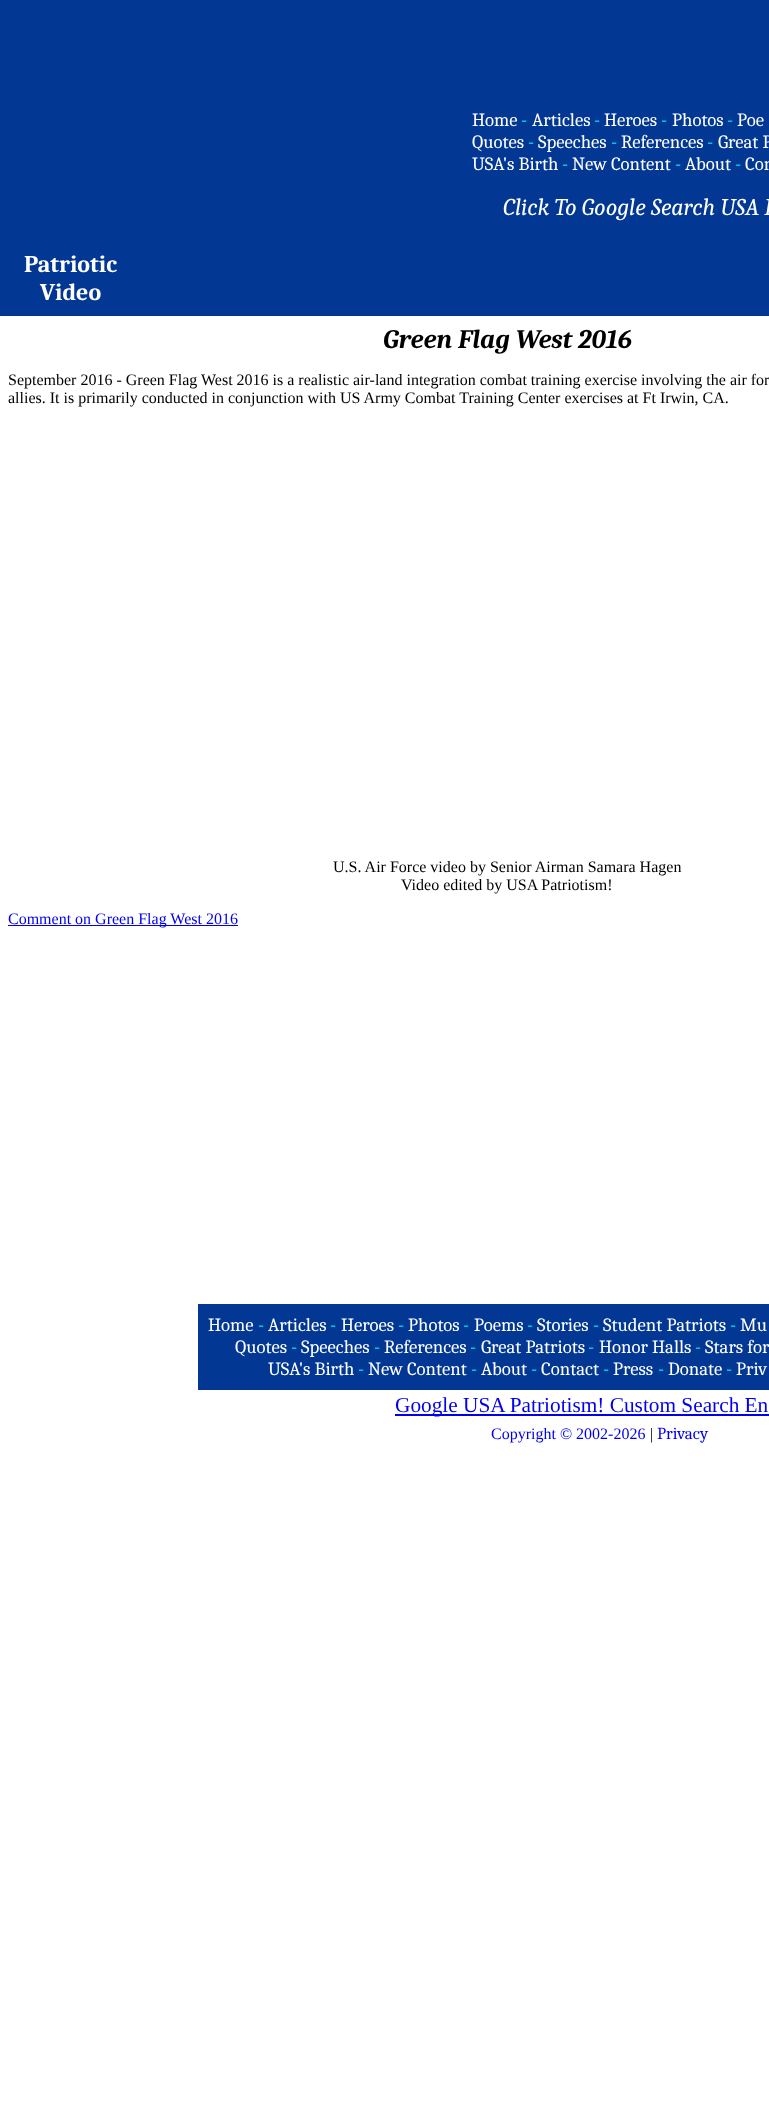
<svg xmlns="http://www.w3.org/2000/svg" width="769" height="2121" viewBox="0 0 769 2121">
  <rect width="100%" height="100%" fill="#fff"/>
  <path d="M0 0h769v316H0z" fill="#023893"/>
  <path d="M8 925h230v1H8z" fill="#00e"/>
  <path d="M198 1304h571v86H198z" fill="#023893"/>
  <path d="M395 1414h374v2H395z" fill="#00e"/>
  <text x="472" y="126" font-family="Caladea" font-size="18.75" fill="#fff">Home</text>
  <text x="521" y="126" font-family="Caladea" font-size="18.75" fill="#0ff">-</text>
  <text x="532" y="126" font-family="Caladea" font-size="18.75" fill="#fff">Articles</text>
  <text x="594" y="126" font-family="Caladea" font-size="18.75" fill="#0ff">-</text>
  <text x="604" y="126" font-family="Caladea" font-size="18.75" fill="#fff">Heroes</text>
  <text x="661" y="126" font-family="Caladea" font-size="18.75" fill="#0ff">-</text>
  <text x="672" y="126" font-family="Caladea" font-size="18.75" fill="#fff">Photos</text>
  <text x="727" y="126" font-family="Caladea" font-size="18.75" fill="#0ff">-</text>
  <g font-family="Caladea" font-size="18.75" fill="#fff">
    <text x="737" y="126">Poe</text>
    <text x="472" y="148">Quotes</text>
  </g>
  <text x="528" y="148" font-family="Caladea" font-size="18.75" fill="#0ff">-</text>
  <text x="538" y="148" font-family="Caladea" font-size="18.75" fill="#fff">Speeches</text>
  <text x="611" y="148" font-family="Caladea" font-size="18.75" fill="#0ff">-</text>
  <text x="621" y="148" font-family="Caladea" font-size="18.75" fill="#fff">References</text>
  <text x="707" y="148" font-family="Caladea" font-size="18.75" fill="#0ff">-</text>
  <g font-family="Caladea" font-size="18.75" fill="#fff">
    <text x="718" y="148">Great P</text>
    <text x="472" y="170">USA's Birth</text>
  </g>
  <text x="562" y="170" font-family="Caladea" font-size="18.75" fill="#0ff">-</text>
  <text x="572" y="170" font-family="Caladea" font-size="18.75" fill="#fff">New Content</text>
  <text x="675" y="170" font-family="Caladea" font-size="18.75" fill="#0ff">-</text>
  <text x="685" y="170" font-family="Caladea" font-size="18.75" fill="#fff">About</text>
  <text x="735" y="170" font-family="Caladea" font-size="18.75" fill="#0ff">-</text>
  <text x="745" y="170" font-family="Caladea" font-size="18.75" fill="#fff">Con</text>
  <text x="503" y="215" font-family="Caladea" font-size="24" font-style="italic" fill="#fff">Click To Google Search USA P</text>
  <g font-family="Caladea" font-size="24" font-weight="bold" fill="#fff">
    <text x="24" y="272">Patriotic</text>
    <text x="40" y="300">Video</text>
  </g>
  <text x="383" y="348" font-family="Caladea" font-size="26.75" font-weight="bold" font-style="italic" fill="#000">Green Flag West 2016</text>
  <g font-family="Liberation Serif" font-size="16" fill="#000">
    <text x="8" y="385">September 2016 - Green Flag West 2016 is a realistic air-land integration combat training exercise involving the air for</text>
    <text x="8" y="403">allies. It is primarily conducted in conjunction with US Army Combat Training Center exercises at Ft Irwin, CA.</text>
    <text x="333" y="872">U.S. Air Force video by Senior Airman Samara Hagen</text>
    <text x="401" y="890">Video edited by USA Patriotism!</text>
  </g>
  <text x="8" y="924" font-family="Liberation Serif" font-size="16" fill="#00e">Comment on Green Flag West 2016</text>
  <text x="208" y="1331" font-family="Caladea" font-size="18.75" fill="#fff">Home</text>
  <text x="258" y="1331" font-family="Caladea" font-size="18.75" fill="#0ff">-</text>
  <text x="268" y="1331" font-family="Caladea" font-size="18.75" fill="#fff">Articles</text>
  <text x="330" y="1331" font-family="Caladea" font-size="18.75" fill="#0ff">-</text>
  <text x="341" y="1331" font-family="Caladea" font-size="18.75" fill="#fff">Heroes</text>
  <text x="398" y="1331" font-family="Caladea" font-size="18.75" fill="#0ff">-</text>
  <text x="408" y="1331" font-family="Caladea" font-size="18.75" fill="#fff">Photos</text>
  <text x="463" y="1331" font-family="Caladea" font-size="18.75" fill="#0ff">-</text>
  <text x="474" y="1331" font-family="Caladea" font-size="18.75" fill="#fff">Poems</text>
  <text x="527" y="1331" font-family="Caladea" font-size="18.75" fill="#0ff">-</text>
  <text x="537" y="1331" font-family="Caladea" font-size="18.75" fill="#fff">Stories</text>
  <text x="593" y="1331" font-family="Caladea" font-size="18.75" fill="#0ff">-</text>
  <text x="603" y="1331" font-family="Caladea" font-size="18.75" fill="#fff">Student Patriots</text>
  <text x="730" y="1331" font-family="Caladea" font-size="18.75" fill="#0ff">-</text>
  <g font-family="Caladea" font-size="18.75" fill="#fff">
    <text x="740" y="1331">Mu</text>
    <text x="235" y="1353">Quotes</text>
  </g>
  <text x="291" y="1353" font-family="Caladea" font-size="18.75" fill="#0ff">-</text>
  <text x="301" y="1353" font-family="Caladea" font-size="18.75" fill="#fff">Speeches</text>
  <text x="374" y="1353" font-family="Caladea" font-size="18.75" fill="#0ff">-</text>
  <text x="384" y="1353" font-family="Caladea" font-size="18.75" fill="#fff">References</text>
  <text x="470" y="1353" font-family="Caladea" font-size="18.75" fill="#0ff">-</text>
  <text x="481" y="1353" font-family="Caladea" font-size="18.75" fill="#fff">Great Patriots</text>
  <text x="588" y="1353" font-family="Caladea" font-size="18.75" fill="#0ff">-</text>
  <text x="599" y="1353" font-family="Caladea" font-size="18.75" fill="#fff">Honor Halls</text>
  <text x="695" y="1353" font-family="Caladea" font-size="18.75" fill="#0ff">-</text>
  <g font-family="Caladea" font-size="18.75" fill="#fff">
    <text x="705" y="1353">Stars for</text>
    <text x="268" y="1375">USA's Birth</text>
  </g>
  <text x="358" y="1375" font-family="Caladea" font-size="18.75" fill="#0ff">-</text>
  <text x="368" y="1375" font-family="Caladea" font-size="18.75" fill="#fff">New Content</text>
  <text x="471" y="1375" font-family="Caladea" font-size="18.75" fill="#0ff">-</text>
  <text x="481" y="1375" font-family="Caladea" font-size="18.75" fill="#fff">About</text>
  <text x="531" y="1375" font-family="Caladea" font-size="18.75" fill="#0ff">-</text>
  <text x="541" y="1375" font-family="Caladea" font-size="18.75" fill="#fff">Contact</text>
  <text x="603" y="1375" font-family="Caladea" font-size="18.75" fill="#0ff">-</text>
  <text x="613" y="1375" font-family="Caladea" font-size="18.75" fill="#fff">Press</text>
  <text x="658" y="1375" font-family="Caladea" font-size="18.75" fill="#0ff">-</text>
  <text x="668" y="1375" font-family="Caladea" font-size="18.75" fill="#fff">Donate</text>
  <text x="726" y="1375" font-family="Caladea" font-size="18.75" fill="#0ff">-</text>
  <text x="736" y="1375" font-family="Caladea" font-size="18.75" fill="#fff">Priv</text>
  <text x="395" y="1412" font-family="Liberation Serif" font-size="21.3" fill="#00e">Google USA Patriotism! Custom Search En</text>
  <text x="491" y="1439" font-family="Liberation Serif" font-size="16" fill="#00e">Copyright © 2002-2026</text>
  <text x="650" y="1439" font-family="Liberation Serif" font-size="16" fill="#000">|</text>
  <text x="657" y="1439" font-family="Caladea" font-size="17" fill="#00e">Privacy</text>
</svg>
